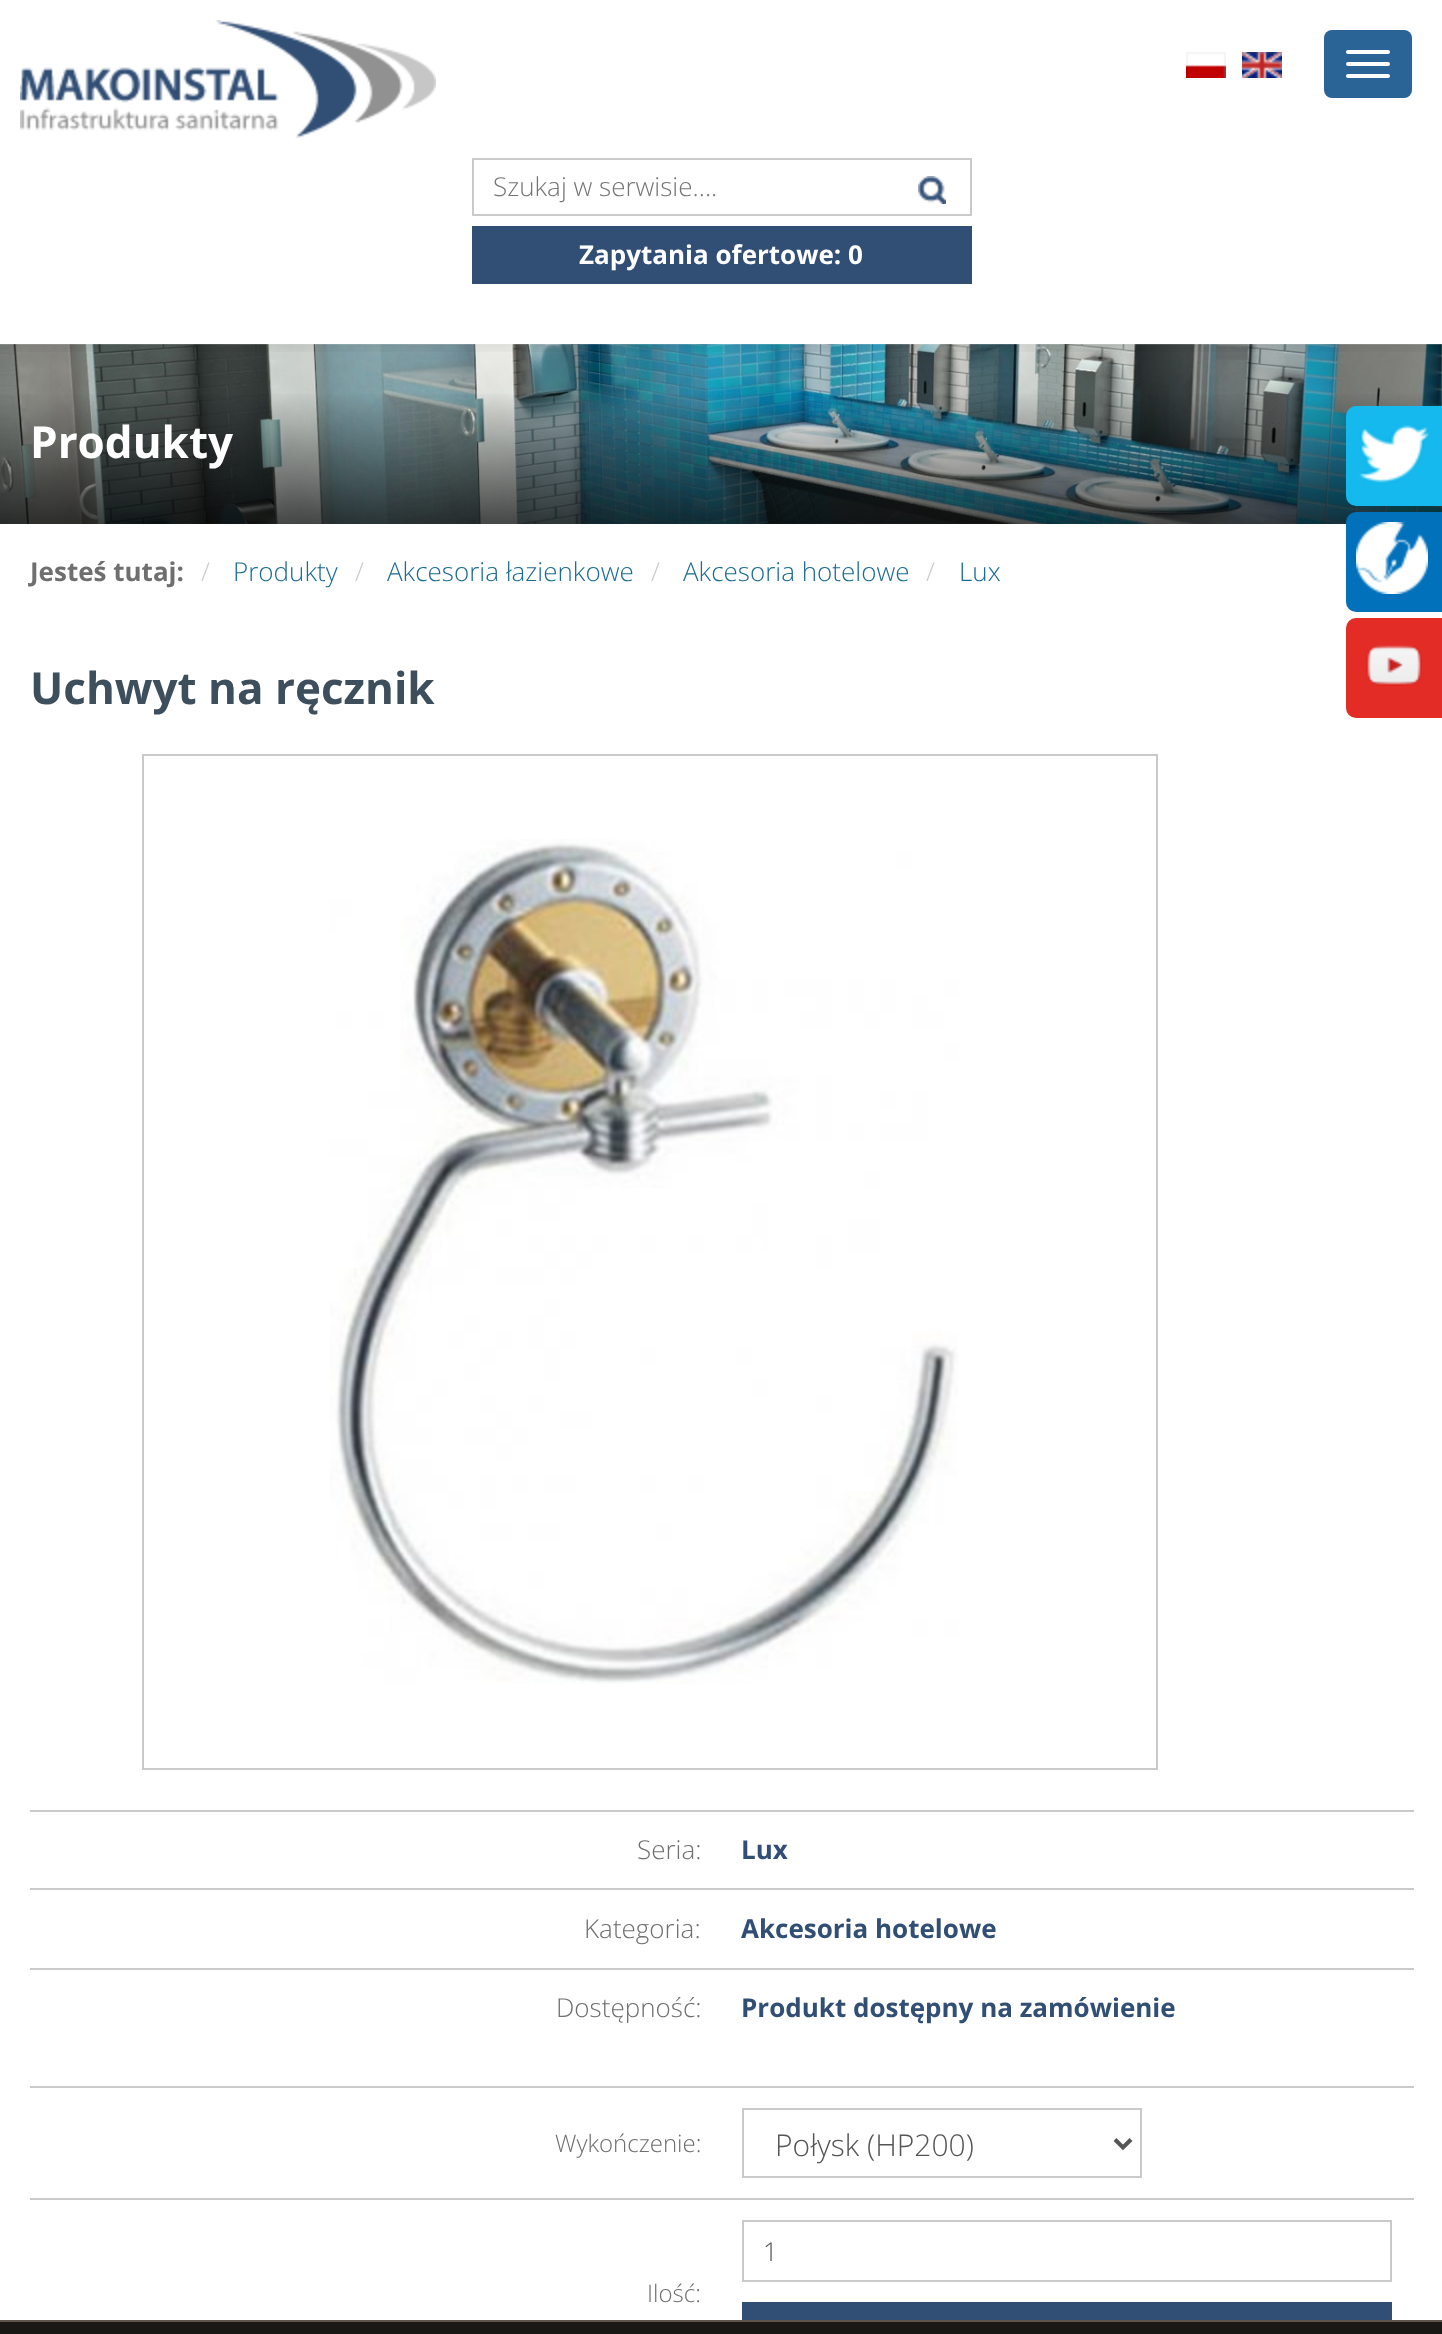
<svg xmlns="http://www.w3.org/2000/svg" width="1442" height="2334" viewBox="0 0 1442 2334">
  <defs>
    <clipPath id="clip1"><path d="M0 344h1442v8H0z"/></clipPath>
    <linearGradient id="g1" gradientUnits="userSpaceOnUse" x1="721" y1="390" x2="721" y2="524"><stop offset="0" stop-color="#000" stop-opacity="0"/><stop offset="1" stop-color="#000" stop-opacity="0.65"/></linearGradient>
  </defs>
  <rect width="100%" height="100%" fill="#fff"/>
  <image x="0" y="344" width="1442" height="180" href="img/5.png"/>
  <g clip-path="url(#clip1)">
    <path d="M0 0h1442v344H0z" fill="#0000001a" filter="blur(10px)"/>
  </g>
  <image x="20" y="20" width="416" height="118" href="img/1.png"/>
  <image x="1186" y="52" width="40" height="26" href="img/2.png"/>
  <image x="1242" y="52" width="40" height="26" href="img/3.png"/>
  <rect x="1324" y="30" width="88" height="68" rx="8" fill="#2a6496"/>
  <rect x="1346" y="50" width="44" height="4" rx="2" fill="#fff"/>
  <rect x="1346" y="62" width="44" height="4" rx="2" fill="#fff"/>
  <rect x="1346" y="74" width="44" height="4" rx="2" fill="#fff"/>
  <path d="M473 159h498v56H473z" fill="none" stroke="#cacaca" stroke-width="2"/>
  <image x="918" y="176" width="28" height="28" href="img/4.png"/>
  <path d="M472 226h500v58H472z" fill="#314e75"/>
  <path d="M0 394h1442v130H0z" fill="url(#g1)"/>
  <rect x="1346" y="406" width="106" height="100" rx="10" fill="#16b9ed"/>
  <image x="1359" y="425" width="71" height="59" href="img/6.png"/>
  <rect x="1346" y="512" width="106" height="100" rx="10" fill="#0171bb"/>
  <image x="1356" y="522" width="72" height="72" href="img/7.png"/>
  <rect x="1346" y="618" width="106" height="100" rx="10" fill="#e32c26"/>
  <image x="1366" y="645" width="56" height="41" href="img/8.png"/>
  <path d="M143 755h1014v1014H143z" fill="none" stroke="#cacaca" stroke-width="2"/>
  <image x="330" y="839" width="628" height="845" href="img/9.png"/>
  <path d="M30 1810h1384v2H30z" fill="#cacaca"/>
  <path d="M30 1888h1384v2H30z" fill="#cacaca"/>
  <path d="M30 1968h1384v2H30z" fill="#cacaca"/>
  <path d="M30 2086h1384v2H30z" fill="#cacaca"/>
  <path d="M743 2109h398v68H743z" fill="none" stroke="#cacaca" stroke-width="2"/>
  <path d="M1115 2139.5L1123 2147.5L1131 2139.5" fill="none" stroke="#555" stroke-width="4"/>
  <path d="M30 2198h1384v2H30z" fill="#cacaca"/>
  <path d="M743 2221h648v60H743z" fill="none" stroke="#cacaca" stroke-width="2"/>
  <path d="M742 2302h650v18H742z" fill="#314e75"/>
  <path d="M0 2322h1442v12H0z" fill="#1a1815"/>
  <path d="M0 2320h1442v2H0z" fill="#5f554c"/>
  <text x="493" y="196" font-family="Open Sans" font-size="26" font-weight="300" fill="#757575">Szukaj w serwisie....</text>
  <text x="579" y="264" font-family="Open Sans" font-size="26" font-weight="bold" fill="#fff">Zapytania ofertowe: 0</text>
  <text x="30" y="458" font-family="Open Sans" font-size="44" font-weight="bold" fill="#fff">Produkty</text>
  <text x="30" y="581" font-family="Open Sans" font-size="26" font-weight="bold" fill="#6f6f6f">Jesteś tutaj:</text>
  <text x="201" y="581" font-family="Open Sans" font-size="26" font-weight="300" fill="#ccc">/</text>
  <text x="233" y="581" font-family="Open Sans" font-size="26" font-weight="300" fill="#1a6c93">Produkty</text>
  <text x="355" y="581" font-family="Open Sans" font-size="26" font-weight="300" fill="#ccc">/</text>
  <text x="387" y="581" font-family="Open Sans" font-size="26" font-weight="300" fill="#1a6c93">Akcesoria łazienkowe</text>
  <text x="651" y="581" font-family="Open Sans" font-size="26" font-weight="300" fill="#ccc">/</text>
  <text x="683" y="581" font-family="Open Sans" font-size="26" font-weight="300" fill="#1a6c93">Akcesoria hotelowe</text>
  <text x="926" y="581" font-family="Open Sans" font-size="26" font-weight="300" fill="#ccc">/</text>
  <text x="959" y="581" font-family="Open Sans" font-size="26" font-weight="300" fill="#1a6c93">Lux</text>
  <text x="30" y="704" font-family="Open Sans" font-size="44" font-weight="bold" fill="#3d4e5c">Uchwyt na ręcznik</text>
  <text x="637" y="1859" font-family="Open Sans" font-size="26" font-weight="300" fill="#6f6f6f">Seria:</text>
  <text x="741" y="1859" font-family="Open Sans" font-size="26" font-weight="bold" fill="#314e75">Lux</text>
  <text x="584" y="1938" font-family="Open Sans" font-size="26" font-weight="300" fill="#6f6f6f">Kategoria:</text>
  <text x="741" y="1938" font-family="Open Sans" font-size="26" font-weight="bold" fill="#314e75">Akcesoria hotelowe</text>
  <text x="556" y="2017" font-family="Open Sans" font-size="26" font-weight="300" fill="#6f6f6f">Dostępność:</text>
  <text x="741" y="2017" font-family="Open Sans" font-size="26" font-weight="bold" fill="#314e75">Produkt dostępny na zamówienie</text>
  <text x="555" y="2152" font-family="Open Sans" font-size="24" font-weight="300" fill="#6f6f6f">Wykończenie:</text>
  <text x="775" y="2156" font-family="Open Sans" font-size="30" font-weight="300" fill="#555">Połysk (HP200)</text>
  <text x="763" y="2261" font-family="Open Sans" font-size="26" font-weight="300" fill="#555">1</text>
  <text x="647" y="2302" font-family="Open Sans" font-size="24" font-weight="300" fill="#6f6f6f">Ilość:</text>
</svg>
